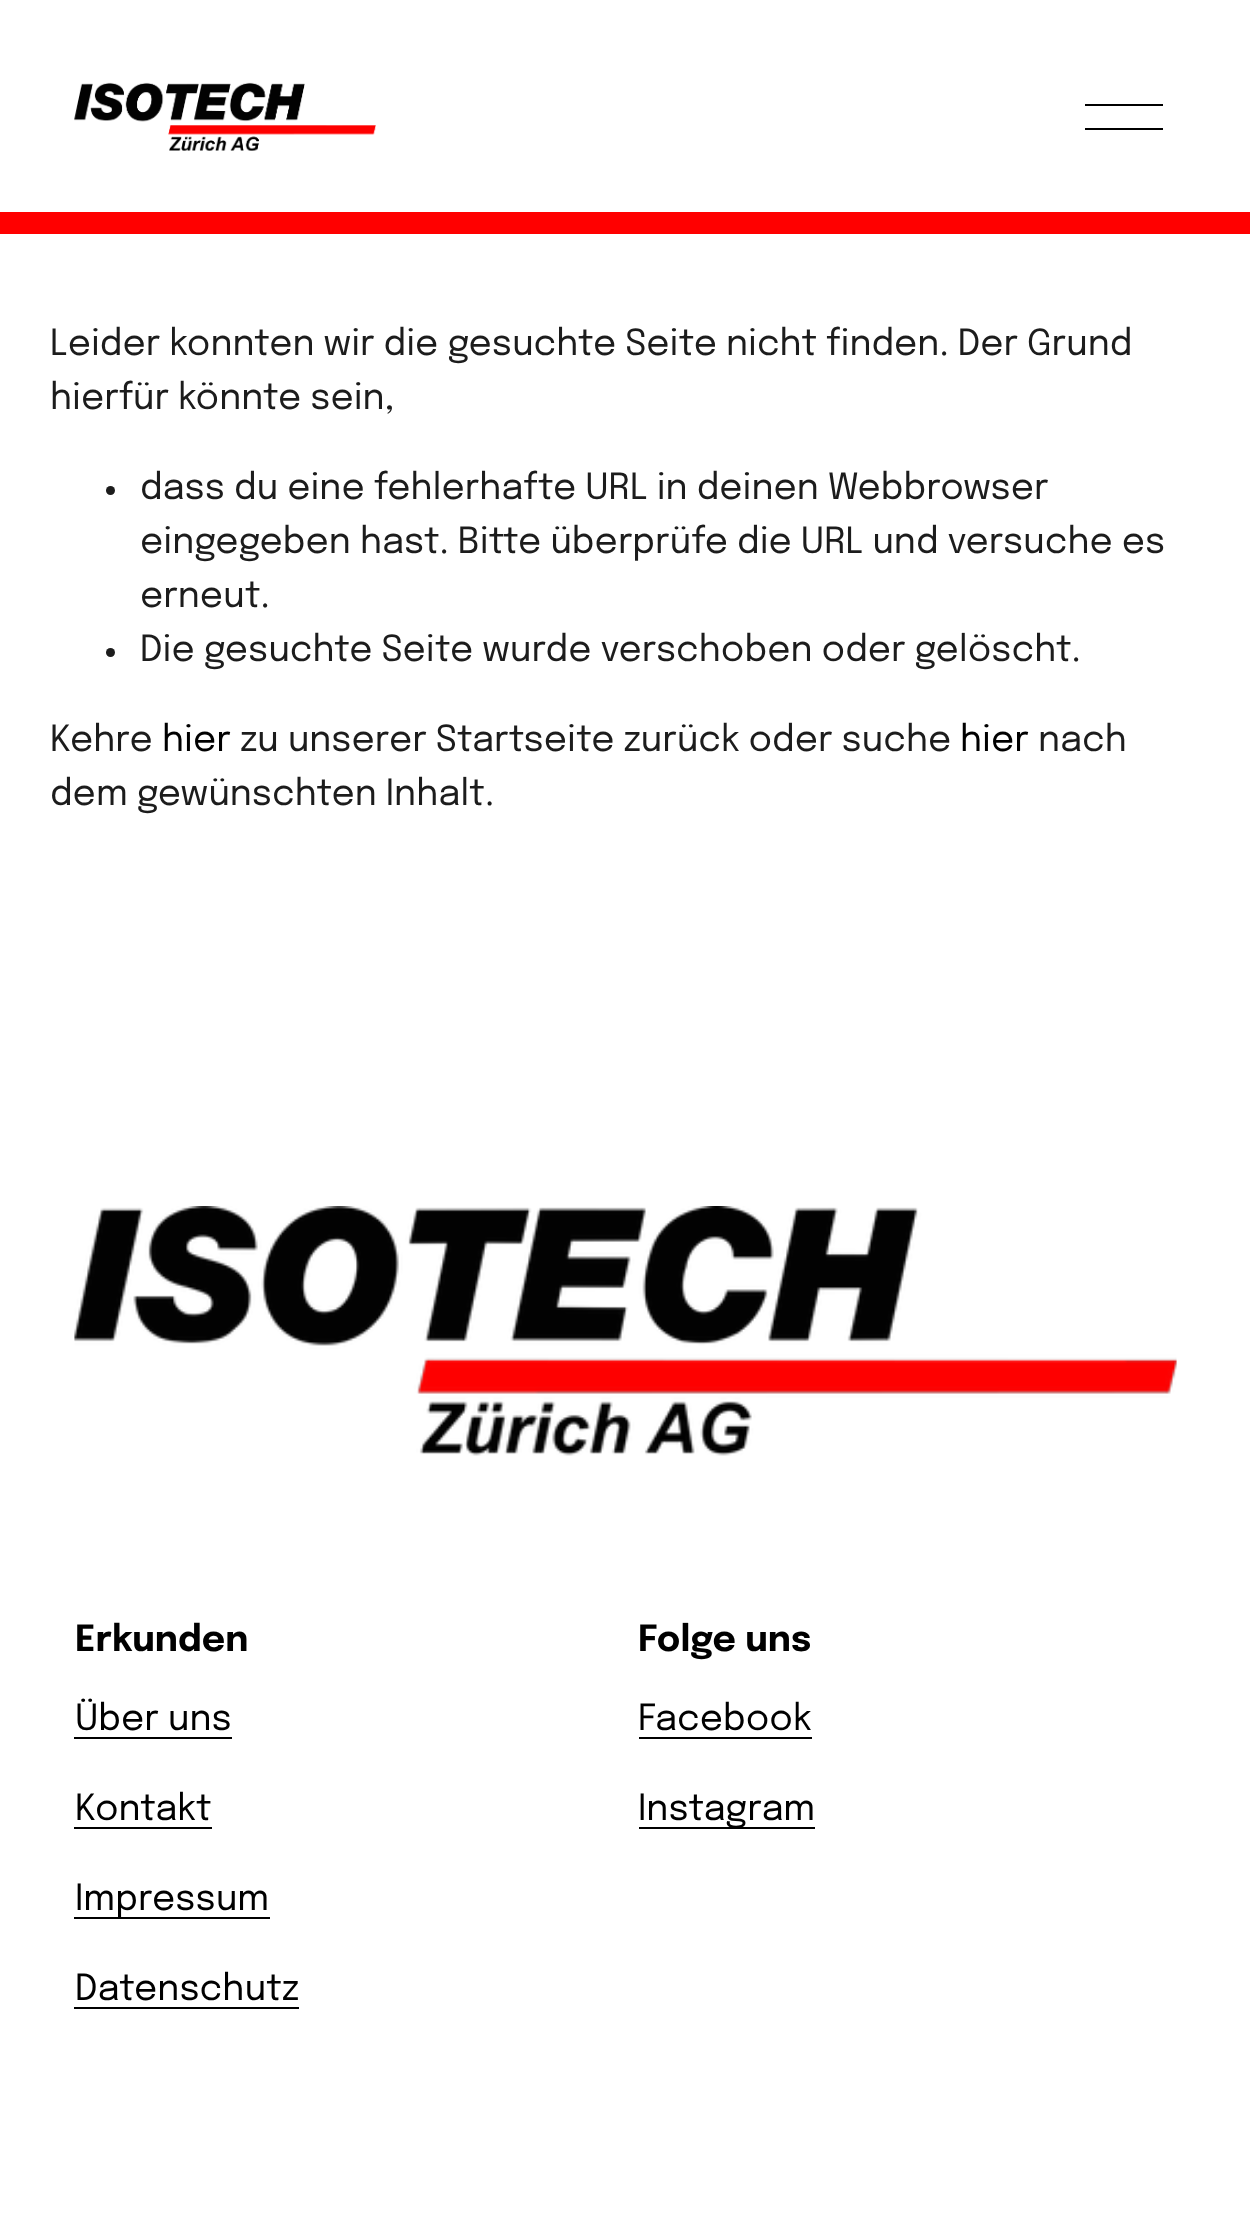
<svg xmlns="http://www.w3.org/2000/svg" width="1250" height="2222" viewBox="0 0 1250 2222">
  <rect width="100%" height="100%" fill="#fff"/>
  <image x="74" y="82" width="302" height="69" href="img/1.png"/>
  <path d="M1085 104h78v2H1085z" fill="#000"/>
  <path d="M1085 128h78v2H1085z" fill="#000"/>
  <path d="M0 212h1250v22H0z" fill="#f00"/>
  <circle cx="110.5" cy="490.5" r="4.5" fill="#1c1c1c"/>
  <circle cx="110.5" cy="652.5" r="4.5" fill="#1c1c1c"/>
  <image x="74" y="1206" width="1103" height="250" href="img/2.png"/>
  <path d="M74 1737h158v2H74z" fill="#000"/>
  <path d="M74 1827h138v2H74z" fill="#000"/>
  <path d="M74 1917h196v2H74z" fill="#000"/>
  <path d="M74 2007h225v2H74z" fill="#000"/>
  <path d="M639 1737h173v2H639z" fill="#000"/>
  <path d="M639 1827h176v2H639z" fill="#000"/>
  <g font-family="Epilogue" font-size="36" fill="#1c1c1c">
    <text x="50" y="355">Leider konnten wir die gesuchte Seite nicht finden. Der Grund</text>
    <text x="50" y="409">hierfür könnte sein,</text>
    <text x="140" y="499">dass du eine fehlerhafte URL in deinen Webbrowser</text>
    <text x="140" y="553">eingegeben hast. Bitte überprüfe die URL und versuche es</text>
    <text x="140" y="607">erneut.</text>
    <text x="140" y="661">Die gesuchte Seite wurde verschoben oder gelöscht.</text>
    <text x="50" y="751">Kehre</text>
  </g>
  <text x="162" y="751" font-family="Epilogue" font-size="36" fill="#000">hier</text>
  <text x="240" y="751" font-family="Epilogue" font-size="36" fill="#1c1c1c">zu unserer Startseite zurück oder suche</text>
  <text x="960" y="751" font-family="Epilogue" font-size="36" fill="#000">hier</text>
  <g font-family="Epilogue" font-size="36" fill="#1c1c1c">
    <text x="1038" y="751">nach</text>
    <text x="50" y="805">dem gewünschten Inhalt.</text>
  </g>
  <g font-family="Epilogue" font-size="36" font-weight="bold" fill="#000">
    <text x="75" y="1651">Erkunden</text>
    <text x="638" y="1651">Folge uns</text>
  </g>
  <g font-family="Epilogue" font-size="36" fill="#000">
    <text x="75" y="1730">Über uns</text>
    <text x="75" y="1820">Kontakt</text>
    <text x="75" y="1910">Impressum</text>
    <text x="75" y="2000">Datenschutz</text>
    <text x="638" y="1730">Facebook</text>
    <text x="638" y="1820">Instagram</text>
  </g>
</svg>
